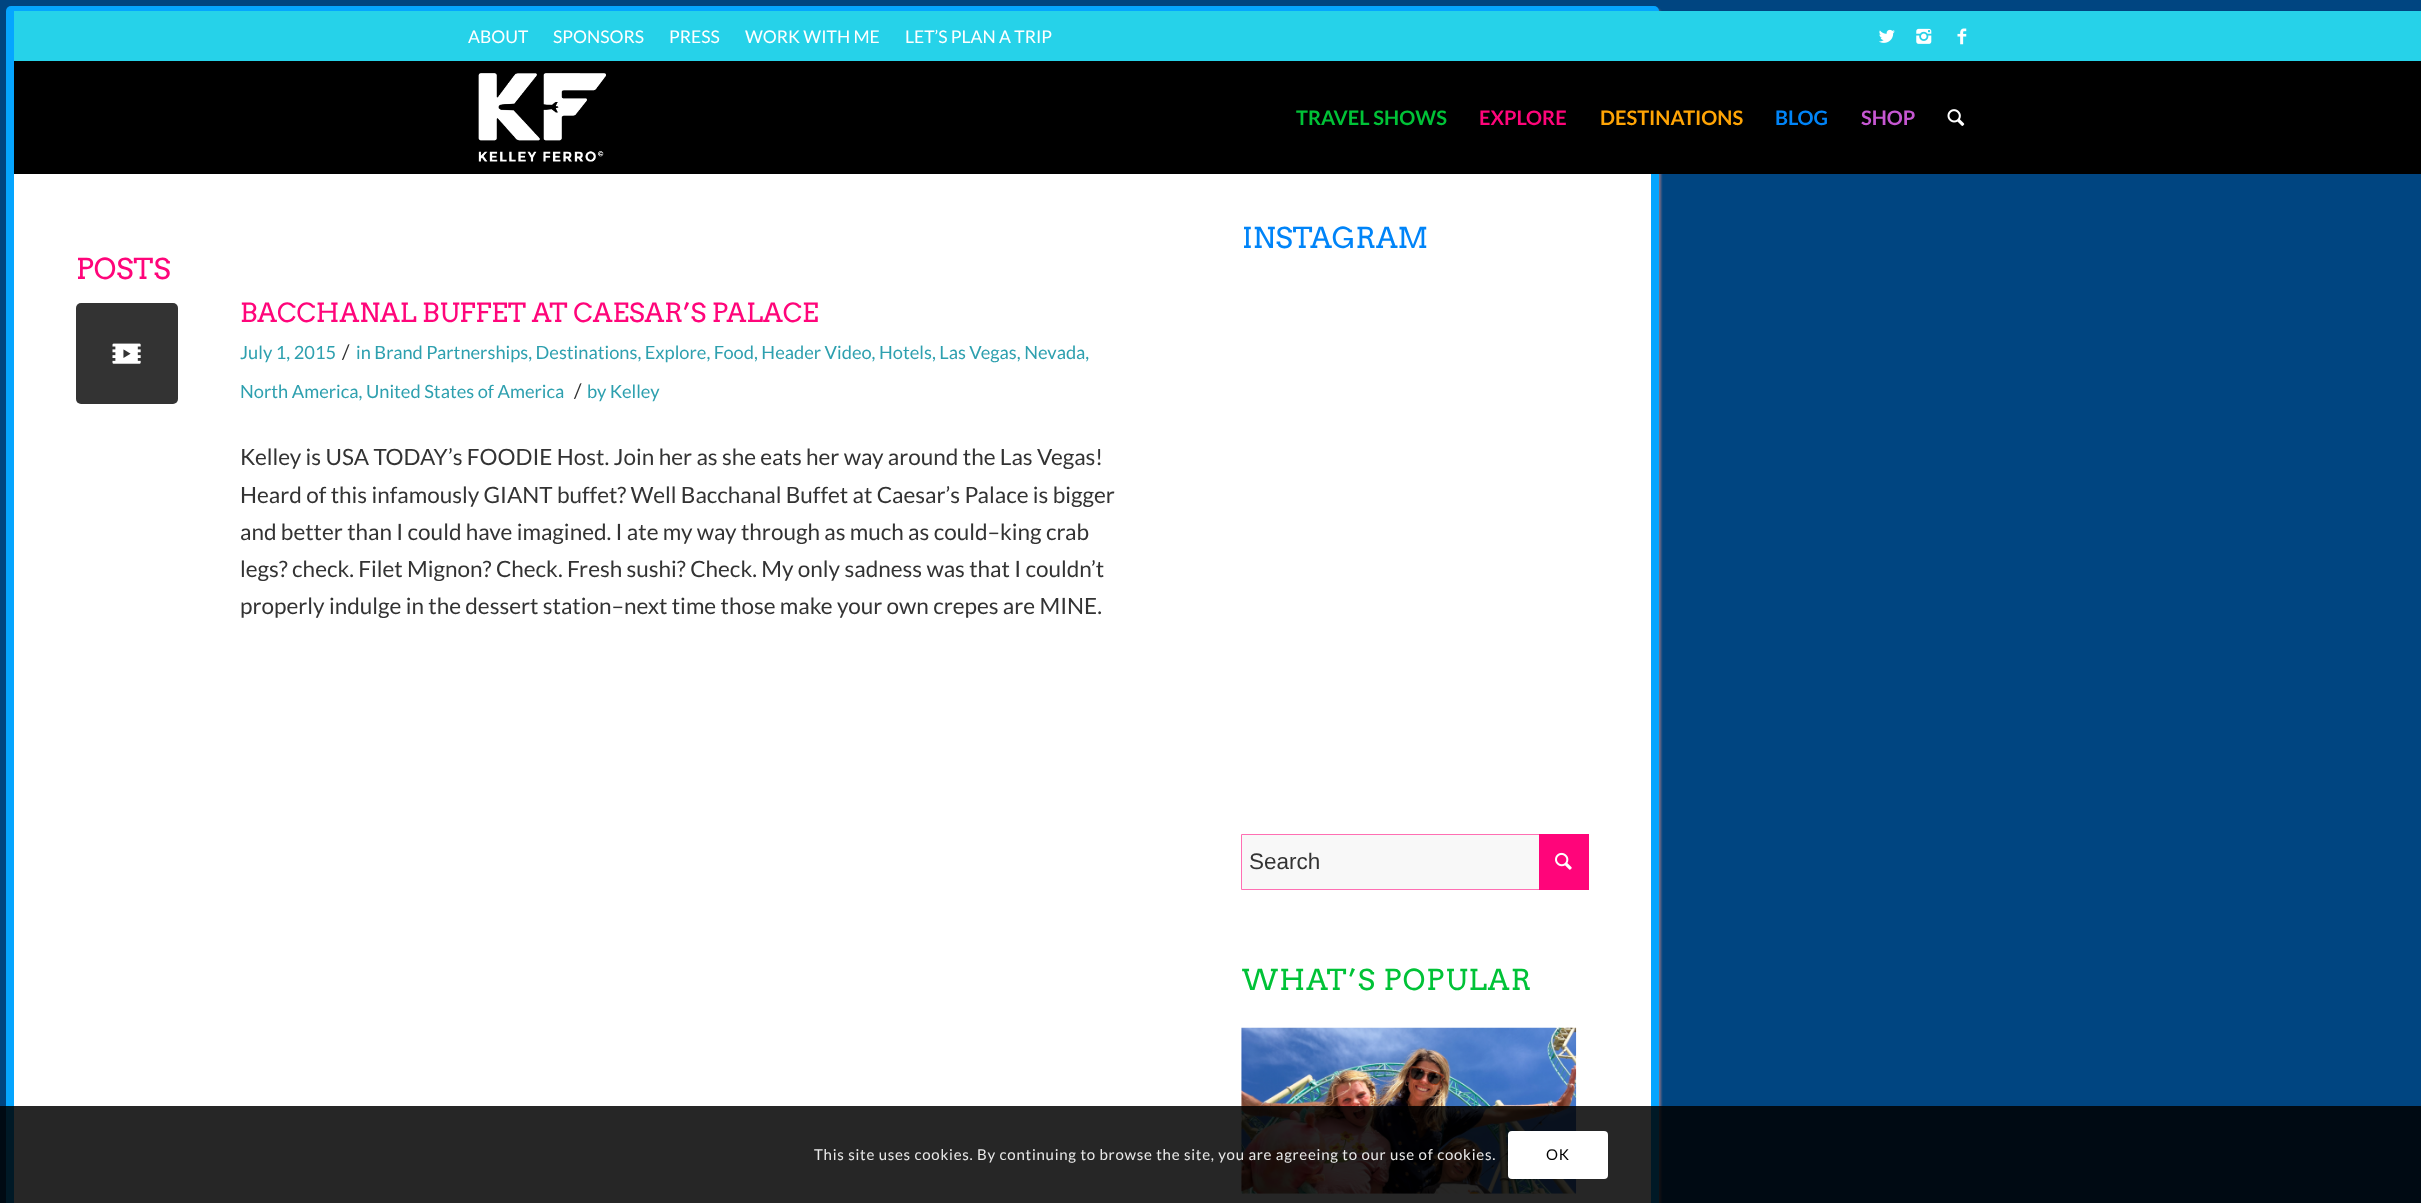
<svg xmlns="http://www.w3.org/2000/svg" width="2421" height="1203" viewBox="0 0 2421 1203">
  <rect width="100%" height="100%" fill="#004581"/>
  <rect x="9" y="9" width="1652" height="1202" rx="5" fill="#836e82" filter="blur(1px)"/>
  <rect x="6" y="6" width="1653" height="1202" rx="5" fill="#05a5ff"/>
  <path d="M14 11h2407v50H14z" fill="#26d2e9"/>
  <image x="1879" y="29" width="16" height="14" href="img/1.png"/>
  <image x="1916" y="28" width="16" height="16" href="img/2.png"/>
  <image x="1957" y="28" width="10" height="17" href="img/3.png"/>
  <path d="M14 61h2407v113H14z" fill="#000"/>
  <image x="478" y="73" width="128" height="89" href="img/4.png"/>
  <image x="1947" y="109" width="18" height="17" href="img/5.png"/>
  <path d="M14 174h1637v1029H14z" fill="#fff"/>
  <rect x="76" y="303" width="102" height="101" rx="5" fill="#333"/>
  <image x="112" y="343" width="29" height="21" href="img/6.png"/>
  <path d="M1242 835h297v54H1242z" fill="#f8f8f8"/>
  <path d="M1241.5 834.5h347v55H1241.5z" fill="none" stroke="#ff6fb3"/>
  <path d="M1539 834h50v56H1539z" fill="#ff057a"/>
  <image x="1555" y="852" width="17" height="18" href="img/7.png"/>
  <image x="1241" y="1027" width="336" height="167" href="img/8.png"/>
  <path d="M0 1106h2421v97H0z" fill="#000000d9"/>
  <rect x="1508" y="1131" width="100" height="48" rx="4" fill="#fff"/>
  <g font-family="Lato" font-size="17.5" fill="#fff">
    <text x="468" y="43">ABOUT</text>
    <text x="553" y="43">SPONSORS</text>
    <text x="669" y="43">PRESS</text>
    <text x="745" y="43">WORK WITH ME</text>
    <text x="905" y="43">LET’S PLAN A TRIP</text>
  </g>
  <text x="1296" y="125" font-family="Lato" font-size="20" font-weight="bold" fill="#00c237">TRAVEL SHOWS</text>
  <text x="1479" y="125" font-family="Lato" font-size="20" font-weight="bold" fill="#ff057a">EXPLORE</text>
  <text x="1600" y="125" font-family="Lato" font-size="20" font-weight="bold" fill="#ffa405">DESTINATIONS</text>
  <text x="1775" y="125" font-family="Lato" font-size="20" font-weight="bold" fill="#0084f8">BLOG</text>
  <text x="1861" y="125" font-family="Lato" font-size="20" font-weight="bold" fill="#c657d2">SHOP</text>
  <text x="76" y="279" font-family="Arvo" font-size="28.75" fill="#ff057a">POSTS</text>
  <text x="240" y="322" font-family="Arvo" font-size="26.25" fill="#ff057a">BACCHANAL BUFFET AT CAESAR’S PALACE</text>
  <text x="240" y="359" font-family="Lato" font-size="18.25" fill="#2ea0af">July 1, 2015</text>
  <text x="342" y="359" font-family="Lato" font-size="20" fill="#333">/</text>
  <g font-family="Lato" font-size="18.25" fill="#2ea0af">
    <text x="356" y="359">in Brand Partnerships, Destinations, Explore, Food, Header Video, Hotels, Las Vegas, Nevada,</text>
    <text x="240" y="398">North America, United States of America</text>
  </g>
  <text x="574" y="398" font-family="Lato" font-size="20" fill="#333">/</text>
  <text x="587" y="398" font-family="Lato" font-size="18.25" fill="#2ea0af">by Kelley</text>
  <g font-family="Lato" font-size="22.5" fill="#333">
    <text x="240" y="465">Kelley is USA TODAY’s FOODIE Host. Join her as she eats her way around the Las Vegas!</text>
    <text x="240" y="503">Heard of this infamously GIANT buffet? Well Bacchanal Buffet at Caesar’s Palace is bigger</text>
    <text x="240" y="540">and better than I could have imagined. I ate my way through as much as could–king crab</text>
    <text x="240" y="577">legs? check. Filet Mignon? Check. Fresh sushi? Check. My only sadness was that I couldn’t</text>
    <text x="240" y="614">properly indulge in the dessert station–next time those make your own crepes are MINE.</text>
  </g>
  <text x="1242" y="248" font-family="Arvo" font-size="28.75" fill="#0084f8">INSTAGRAM</text>
  <text x="1249" y="869" font-family="Liberation Sans" font-size="22.5" fill="#333">Search</text>
  <text x="1242" y="990" font-family="Arvo" font-size="28.75" letter-spacing="1.25" fill="#00c237">WHAT’S POPULAR</text>
  <text x="814" y="1160" font-family="Lato" font-size="15" letter-spacing="0.75" fill="#e9e9e9">This site uses cookies. By continuing to browse the site, you are agreeing to our use of cookies.</text>
  <text x="1546" y="1160" font-family="Lato" font-size="15" letter-spacing="0.75" fill="#000">OK</text>
</svg>
